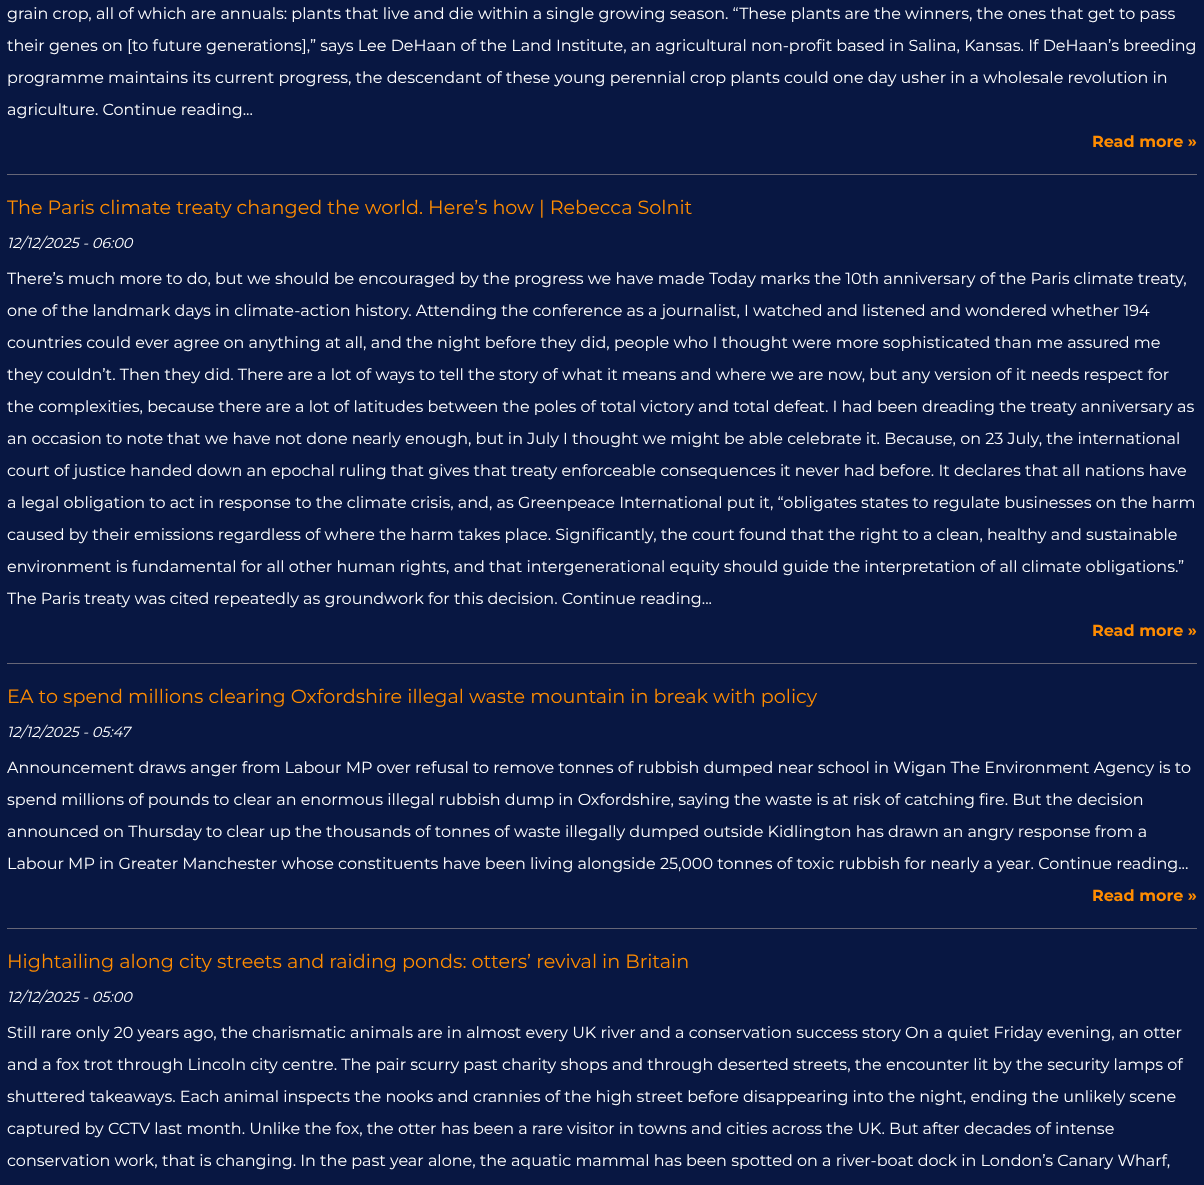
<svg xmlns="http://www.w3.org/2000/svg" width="1204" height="1185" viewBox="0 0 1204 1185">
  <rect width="100%" height="100%" fill="#081742"/>
  <path d="M7 174h1190v1H7z" fill="#667"/>
  <path d="M7 663h1190v1H7z" fill="#667"/>
  <path d="M7 928h1190v1H7z" fill="#667"/>
  <g font-family="Montserrat" font-size="16" fill="#fff">
    <text x="7" y="19">grain crop, all of which are annuals: plants that live and die within a single growing season. “These plants are the winners, the ones that get to pass</text>
    <text x="7" y="51">their genes on [to future generations],” says Lee DeHaan of the Land Institute, an agricultural non-profit based in Salina, Kansas. If DeHaan’s breeding</text>
    <text x="7" y="83">programme maintains its current progress, the descendant of these young perennial crop plants could one day usher in a wholesale revolution in</text>
    <text x="7" y="115">agriculture. Continue reading...</text>
  </g>
  <text x="1092" y="147" font-family="Montserrat" font-size="16" font-weight="bold" fill="#ff8c00">Read more »</text>
  <text x="7" y="214" font-family="Montserrat" font-size="19.2" fill="#ff8c00">The Paris climate treaty changed the world. Here’s how | Rebecca Solnit</text>
  <text x="7" y="248" font-family="Montserrat" font-size="14.5" font-style="italic" fill="#fff">12/12/2025 - 06:00</text>
  <g font-family="Montserrat" font-size="16" fill="#fff">
    <text x="7" y="284">There’s much more to do, but we should be encouraged by the progress we have made Today marks the 10th anniversary of the Paris climate treaty,</text>
    <text x="7" y="316">one of the landmark days in climate-action history. Attending the conference as a journalist, I watched and listened and wondered whether 194</text>
    <text x="7" y="348">countries could ever agree on anything at all, and the night before they did, people who I thought were more sophisticated than me assured me</text>
    <text x="7" y="380">they couldn’t. Then they did. There are a lot of ways to tell the story of what it means and where we are now, but any version of it needs respect for</text>
    <text x="7" y="412">the complexities, because there are a lot of latitudes between the poles of total victory and total defeat. I had been dreading the treaty anniversary as</text>
    <text x="7" y="444">an occasion to note that we have not done nearly enough, but in July I thought we might be able celebrate it. Because, on 23 July, the international</text>
    <text x="7" y="476">court of justice handed down an epochal ruling that gives that treaty enforceable consequences it never had before. It declares that all nations have</text>
    <text x="7" y="508">a legal obligation to act in response to the climate crisis, and, as Greenpeace International put it, “obligates states to regulate businesses on the harm</text>
    <text x="7" y="540">caused by their emissions regardless of where the harm takes place. Significantly, the court found that the right to a clean, healthy and sustainable</text>
    <text x="7" y="572">environment is fundamental for all other human rights, and that intergenerational equity should guide the interpretation of all climate obligations.”</text>
    <text x="7" y="604">The Paris treaty was cited repeatedly as groundwork for this decision. Continue reading...</text>
  </g>
  <text x="1092" y="636" font-family="Montserrat" font-size="16" font-weight="bold" fill="#ff8c00">Read more »</text>
  <text x="7" y="703" font-family="Montserrat" font-size="19.2" fill="#ff8c00">EA to spend millions clearing Oxfordshire illegal waste mountain in break with policy</text>
  <text x="7" y="737" font-family="Montserrat" font-size="14.5" font-style="italic" fill="#fff">12/12/2025 - 05:47</text>
  <g font-family="Montserrat" font-size="16" fill="#fff">
    <text x="7" y="773">Announcement draws anger from Labour MP over refusal to remove tonnes of rubbish dumped near school in Wigan The Environment Agency is to</text>
    <text x="7" y="805">spend millions of pounds to clear an enormous illegal rubbish dump in Oxfordshire, saying the waste is at risk of catching fire. But the decision</text>
    <text x="7" y="837">announced on Thursday to clear up the thousands of tonnes of waste illegally dumped outside Kidlington has drawn an angry response from a</text>
    <text x="7" y="869">Labour MP in Greater Manchester whose constituents have been living alongside 25,000 tonnes of toxic rubbish for nearly a year. Continue reading...</text>
  </g>
  <text x="1092" y="901" font-family="Montserrat" font-size="16" font-weight="bold" fill="#ff8c00">Read more »</text>
  <text x="7" y="968" font-family="Montserrat" font-size="19.2" fill="#ff8c00">Hightailing along city streets and raiding ponds: otters’ revival in Britain</text>
  <text x="7" y="1002" font-family="Montserrat" font-size="14.5" font-style="italic" fill="#fff">12/12/2025 - 05:00</text>
  <g font-family="Montserrat" font-size="16" fill="#fff">
    <text x="7" y="1038">Still rare only 20 years ago, the charismatic animals are in almost every UK river and a conservation success story On a quiet Friday evening, an otter</text>
    <text x="7" y="1070">and a fox trot through Lincoln city centre. The pair scurry past charity shops and through deserted streets, the encounter lit by the security lamps of</text>
    <text x="7" y="1102">shuttered takeaways. Each animal inspects the nooks and crannies of the high street before disappearing into the night, ending the unlikely scene</text>
    <text x="7" y="1134">captured by CCTV last month. Unlike the fox, the otter has been a rare visitor in towns and cities across the UK. But after decades of intense</text>
    <text x="7" y="1166">conservation work, that is changing. In the past year alone, the aquatic mammal has been spotted on a river-boat dock in London’s Canary Wharf,</text>
  </g>
</svg>
